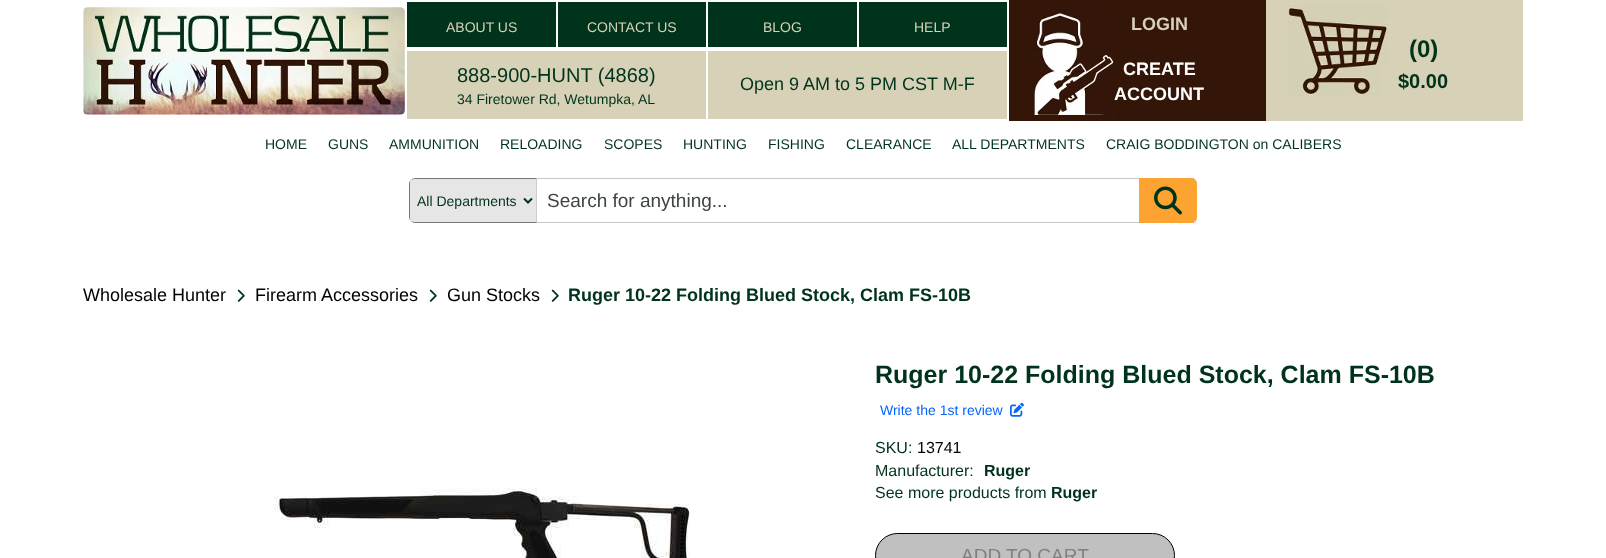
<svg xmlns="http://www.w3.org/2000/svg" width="1606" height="558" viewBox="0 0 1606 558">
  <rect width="100%" height="100%" fill="#fff"/>
  <image x="83" y="7" width="322" height="108" href="img/1.png"/>
  <path d="M407 2h149v45H407z" fill="#00331b"/>
  <path d="M558 2h148v45H558z" fill="#00331b"/>
  <path d="M708 2h149v45H708z" fill="#00331b"/>
  <path d="M859 2h148v45H859z" fill="#00331b"/>
  <path d="M407 51h299v68H407z" fill="#d7d2b7"/>
  <path d="M708 51h299v68H708z" fill="#d7d2b7"/>
  <path d="M1009 0h257v121H1009z" fill="#331608"/>
  <image x="1034" y="7" width="80" height="108" href="img/2.png"/>
  <path d="M1266 0h257v121H1266z" fill="#d7d2b7"/>
  <image x="1288" y="5" width="100" height="92" href="img/3.png"/>
  <path d="M1381 67h7v28H1381z" fill="#d7d2b7"/>
  <path d="M415 178H537V223H415C411.5 223 409 220.5 409 217V184C409 180.5 411.5 178 415 178Z" fill="#e7e6e6"/>
  <path d="M415 178C414 178 412 179 411 180L414 179H536L537 178Z" fill="#767676"/>
  <path d="M537 178L536 179V222L537 223Z" fill="#ccc"/>
  <path d="M537 223L536 222H414L411 221C412 222 414 223 415 223Z" fill="#767676"/>
  <path d="M409 184V217C409 218 410 220 411 221C410 220 410 218 410 217V184C410 182 410 181 411 180C410 181 409 182 409 184Z" fill="#767676"/>
  <path d="M524 198.5L528 202.5L532 198.5" fill="none" stroke="#00331b" stroke-width="2"/>
  <path d="M537 178h602v1H537z" fill="#c7c5c5"/>
  <path d="M537 222h602v1H537z" fill="#c7c5c5"/>
  <path d="M1139 178H1191C1194.5 178 1197 180.5 1197 184V217C1197 220.5 1194.5 223 1191 223H1139Z" fill="#fca331"/>
  <path d="M1191 178h3v1H1191z" fill="#fca331"/>
  <path d="M1191 222h3v1H1191z" fill="#fca331"/>
  <image x="1154" y="186" width="28" height="29" href="img/4.png"/>
  <image x="237" y="289" width="8" height="13" href="img/5.png"/>
  <image x="429" y="289" width="8" height="13" href="img/5.png"/>
  <image x="551" y="289" width="8" height="13" href="img/5.png"/>
  <image x="273" y="488" width="418" height="70" href="img/6.png"/>
  <image x="1010" y="402" width="14" height="15" href="img/7.png"/>
  <rect x="875.5" y="533.5" width="299" height="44" rx="22" fill="#c0c0c0" stroke="#000"/>
  <g font-family="Liberation Sans" font-size="14" fill="#d7d2b7">
    <text x="446" y="32">ABOUT US</text>
    <text x="587" y="32">CONTACT US</text>
    <text x="763" y="32">BLOG</text>
    <text x="914" y="32">HELP</text>
  </g>
  <text x="457" y="82" font-family="Liberation Sans" font-size="20" fill="#00331b">888-900-HUNT (4868)</text>
  <text x="457" y="104" font-family="Liberation Sans" font-size="14" fill="#00331b">34 Firetower Rd, Wetumpka, AL</text>
  <text x="740" y="90" font-family="Liberation Sans" font-size="18" fill="#00331b">Open 9 AM to 5 PM CST M-F</text>
  <text x="1131" y="30" font-family="Liberation Sans" font-size="18" font-weight="bold" fill="#d7d2b7">LOGIN</text>
  <g font-family="Liberation Sans" font-size="18" font-weight="bold" fill="#fff">
    <text x="1123" y="75">CREATE</text>
    <text x="1114" y="100">ACCOUNT</text>
  </g>
  <text x="1409" y="57" font-family="Liberation Sans" font-size="24" font-weight="bold" fill="#00331b">(0)</text>
  <text x="1398" y="88" font-family="Liberation Sans" font-size="20" font-weight="bold" fill="#00331b">$0.00</text>
  <g font-family="Liberation Sans" font-size="14" fill="#00331b">
    <text x="265" y="149">HOME</text>
    <text x="328" y="149">GUNS</text>
    <text x="389" y="149">AMMUNITION</text>
    <text x="500" y="149">RELOADING</text>
    <text x="604" y="149">SCOPES</text>
    <text x="683" y="149">HUNTING</text>
    <text x="768" y="149">FISHING</text>
    <text x="846" y="149">CLEARANCE</text>
    <text x="952" y="149">ALL DEPARTMENTS</text>
    <text x="1106" y="149">CRAIG BODDINGTON on CALIBERS</text>
    <text x="417" y="206">All Departments</text>
  </g>
  <text x="547" y="207" font-family="Liberation Sans" font-size="19" fill="#3e4346">Search for anything...</text>
  <g font-family="Liberation Sans" font-size="18" fill="#000">
    <text x="83" y="301">Wholesale Hunter</text>
    <text x="255" y="301">Firearm Accessories</text>
    <text x="447" y="301">Gun Stocks</text>
  </g>
  <text x="568" y="301" font-family="Liberation Sans" font-size="18" font-weight="bold" fill="#00331b">Ruger 10-22 Folding Blued Stock, Clam FS-10B</text>
  <text x="875" y="383" font-family="Liberation Sans" font-size="25" font-weight="bold" fill="#00331b">Ruger 10-22 Folding Blued Stock, Clam FS-10B</text>
  <text x="880" y="415" font-family="Liberation Sans" font-size="14" fill="#0666ff">Write the 1st review</text>
  <text x="875" y="453" font-family="Liberation Sans" font-size="16" fill="#00331b">SKU:</text>
  <text x="917" y="453" font-family="Liberation Sans" font-size="16" fill="#000">13741</text>
  <text x="875" y="476" font-family="Liberation Sans" font-size="16" fill="#00331b">Manufacturer:</text>
  <text x="984" y="476" font-family="Liberation Sans" font-size="16" font-weight="bold" fill="#00331b">Ruger</text>
  <text x="875" y="498" font-family="Liberation Sans" font-size="16" fill="#00331b">See more products from</text>
  <text x="1051" y="498" font-family="Liberation Sans" font-size="16" font-weight="bold" fill="#00331b">Ruger</text>
  <text x="961" y="562" font-family="Liberation Sans" font-size="19" fill="#808080">ADD TO CART</text>
</svg>
